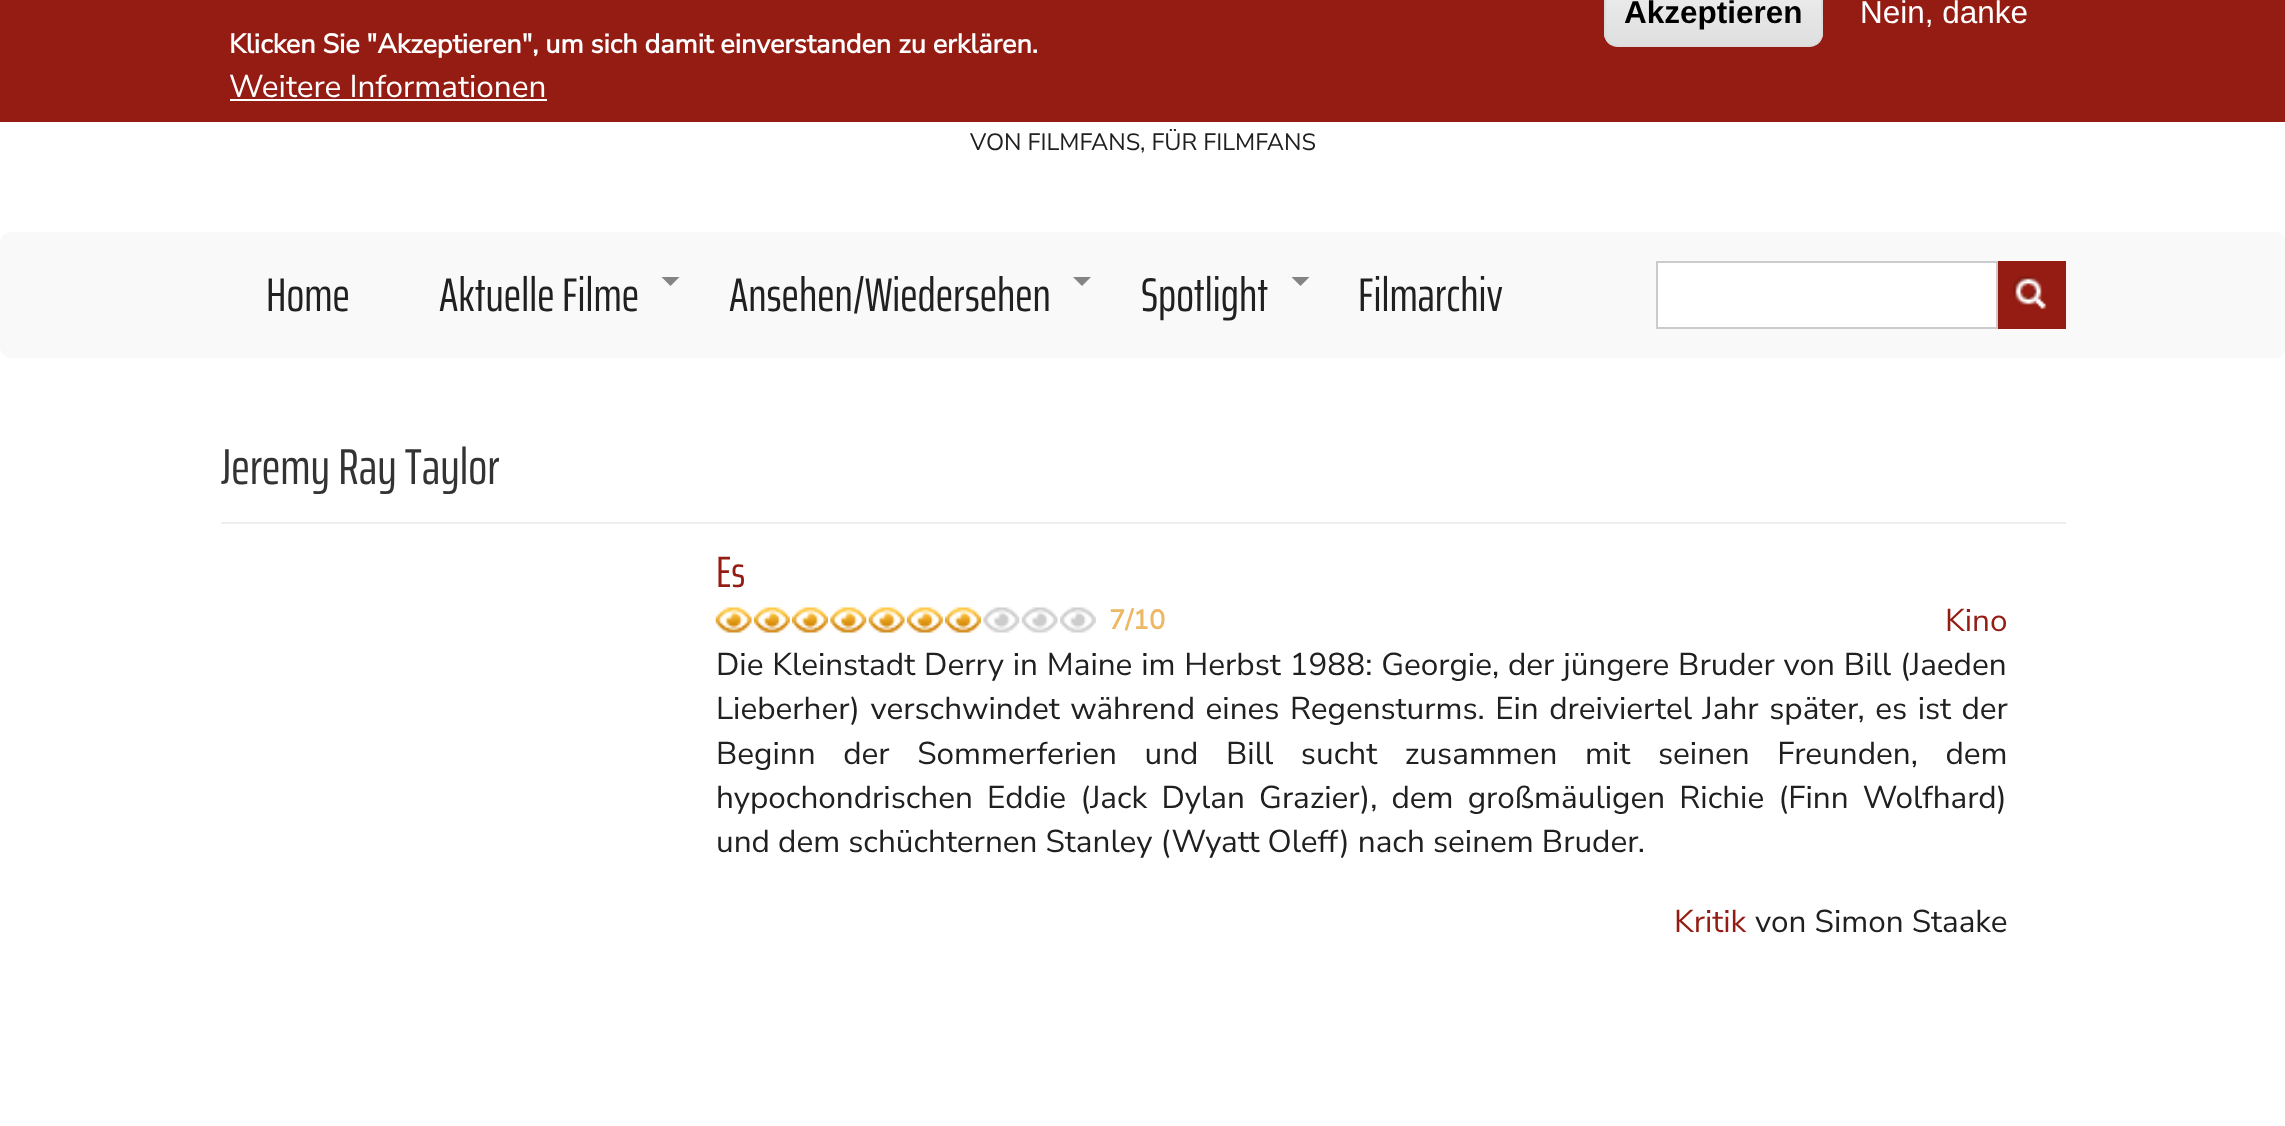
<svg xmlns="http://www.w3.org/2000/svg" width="2285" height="1126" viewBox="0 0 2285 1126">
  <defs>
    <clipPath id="clip1"><rect x="1604" y="-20" width="219" height="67" rx="14"/></clipPath>
    <linearGradient id="g1" gradientUnits="userSpaceOnUse" x1="1713" y1="-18" x2="1713" y2="45"><stop offset="0.05" stop-color="#ededed"/><stop offset="1" stop-color="#dfdfdf"/></linearGradient>
  </defs>
  <rect width="100%" height="100%" fill="#fff"/>
  <path d="M0 0h2285v122H0z" fill="#941c13"/>
  <g clip-path="url(#clip1)">
    <path d="M1604 0h219v45H1604z" fill="url(#g1)"/>
  </g>
  <rect x="1605" y="-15" width="217" height="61" rx="13" fill="none" stroke="#dcdcdc" stroke-width="2"/>
  <path d="M230 99h317v2H230z" fill="#fff"/>
  <rect y="232" width="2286" height="126" rx="11" fill="#f9f9f9"/>
  <path d="M661.5 277H679.5L670.5 286Z" fill="#848484"/>
  <path d="M1073 277H1091L1082 286Z" fill="#848484"/>
  <path d="M1291.5 277H1309.5L1300.5 286Z" fill="#848484"/>
  <path d="M1657 262h340v66H1657z" fill="#fff" stroke="#cbcbcb" stroke-width="2"/>
  <path d="M1998 261h68v68H1998z" fill="#941c13"/>
  <image x="2013" y="276" width="33" height="33" href="img/1.png"/>
  <path d="M221 522h1845v2H221z" fill="#eee"/>
  <image x="715" y="607" width="37" height="26" href="img/2.png"/>
  <image x="753" y="607" width="37" height="26" href="img/3.png"/>
  <image x="792" y="607" width="36" height="26" href="img/4.png"/>
  <image x="830" y="607" width="37" height="26" href="img/5.png"/>
  <image x="868" y="607" width="37" height="26" href="img/6.png"/>
  <image x="906" y="607" width="37" height="26" href="img/7.png"/>
  <image x="945" y="607" width="36" height="26" href="img/8.png"/>
  <image x="983" y="607" width="37" height="26" href="img/9.png"/>
  <image x="1021" y="607" width="37" height="26" href="img/10.png"/>
  <image x="1060" y="607" width="36" height="26" href="img/11.png"/>
  <text x="1624" y="23" font-family="Liberation Sans" font-size="31.5" font-weight="bold" fill="#000">Akzeptieren</text>
  <text x="1860" y="23" font-family="Liberation Sans" font-size="31.5" fill="#fff">Nein, danke</text>
  <text x="229" y="53" font-family="Nunito Sans" font-size="27" font-weight="bold" fill="#fff">Klicken Sie "Akzeptieren", um sich damit einverstanden zu erklären.</text>
  <text x="229" y="97" font-family="Nunito Sans" font-size="31.5" font-weight="200" fill="#fff">Weitere Informationen</text>
  <text x="970" y="150" font-family="Nunito Sans" font-size="23.6" font-weight="200" fill="#212020">VON FILMFANS, FÜR FILMFANS</text>
  <g font-family="Saira ExtraCondensed" font-size="47.25" fill="#212020">
    <text x="266" y="311">Home</text>
    <text x="439" y="311">Aktuelle Filme</text>
    <text x="729" y="311">Ansehen/Wiedersehen</text>
    <text x="1141" y="311">Spotlight</text>
    <text x="1358" y="311">Filmarchiv</text>
  </g>
  <text x="221" y="484" font-family="Saira ExtraCondensed" font-size="50.5" fill="#333">Jeremy Ray Taylor</text>
  <text x="716" y="587" font-family="Saira ExtraCondensed" font-size="44" fill="#941c13">Es</text>
  <text x="1109" y="629" font-family="Nunito Sans" font-size="27" font-weight="bold" fill="#edb863">7/10</text>
  <text x="1945" y="631" font-family="Nunito Sans" font-size="31.5" font-weight="200" fill="#941c13">Kino</text>
  <g font-family="Nunito Sans" font-size="31.5" font-weight="200" fill="#212020">
    <text x="716" y="675" word-spacing="0.75">Die Kleinstadt Derry in Maine im Herbst 1988: Georgie, der jüngere Bruder von Bill (Jaeden</text>
    <text x="716" y="719" word-spacing="2.4">Lieberher) verschwindet während eines Regensturms. Ein dreiviertel Jahr später, es ist der</text>
    <text x="716" y="764" word-spacing="19.5">Beginn der Sommerferien und Bill sucht zusammen mit seinen Freunden, dem</text>
    <text x="716" y="808" word-spacing="6">hypochondrischen Eddie (Jack Dylan Grazier), dem großmäuligen Richie (Finn Wolfhard)</text>
    <text x="716" y="852">und dem schüchternen Stanley (Wyatt Oleff) nach seinem Bruder.</text>
  </g>
  <text x="1674" y="932" font-family="Nunito Sans" font-size="31.5" font-weight="200" fill="#941c13">Kritik</text>
  <text x="1755" y="932" font-family="Nunito Sans" font-size="31.5" font-weight="200" fill="#212020">von Simon Staake</text>
</svg>
